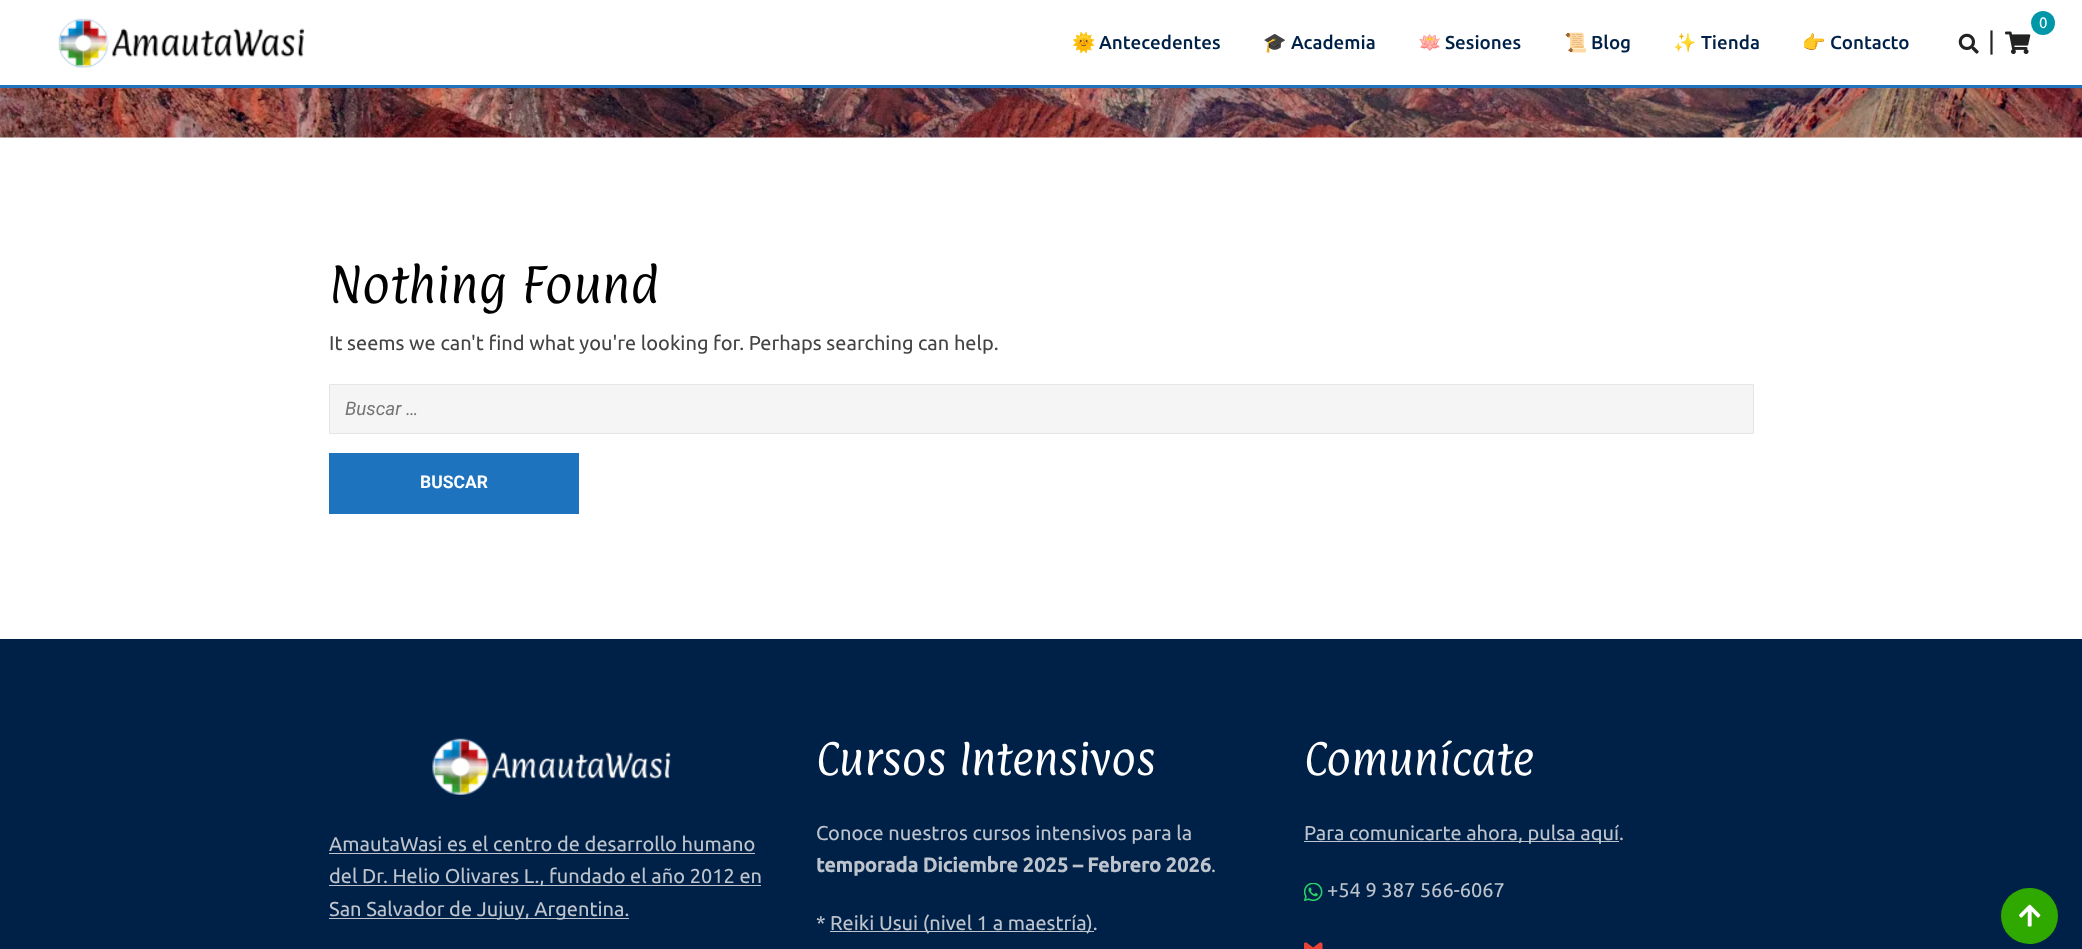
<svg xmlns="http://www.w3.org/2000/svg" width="2082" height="949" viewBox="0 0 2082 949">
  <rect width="100%" height="100%" fill="#fff"/>
  <path d="M0 85h2082v3H0z" fill="#1e73be"/>
  <image x="58" y="18" width="247" height="50" href="img/1.png"/>
  <circle cx="2043" cy="23" r="12" fill="#0097a8"/>
  <image x="2005" y="31" width="26" height="23" href="img/2.png"/>
  <image x="1958" y="33" width="21" height="21" href="img/3.png"/>
  <image x="0" y="88" width="2082" height="50" href="img/4.png"/>
  <path d="M329.5 384.5h1424v49H329.5z" fill="#f5f5f5" stroke="#e5e5e5"/>
  <path d="M329 453h250v61H329z" fill="#1e73be"/>
  <path d="M0 639h2082v310H0z" fill="#002147"/>
  <image x="432" y="738" width="239" height="57" href="img/5.png"/>
  <path d="M329 853h426v1H329z" fill="#bdc4cd"/>
  <path d="M329 885h432v1H329z" fill="#bdc4cd"/>
  <path d="M329 918h300v1H329z" fill="#bdc4cd"/>
  <path d="M830 931h264v1H830z" fill="#bdc4cd"/>
  <path d="M1304 841h315v1H1304z" fill="#bdc4cd"/>
  <image x="1304" y="883" width="19" height="18" href="img/6.png"/>
  <image x="1304" y="942" width="19" height="7" href="img/7.png"/>
  <rect x="2001" y="888" width="57" height="56" rx="28" fill="#2fa800"/>
  <image x="2019" y="904" width="22" height="23" href="img/8.png"/>
  <text x="1072" y="49" font-family="Noto Color Emoji" font-size="18.75" fill="#002147">🌞</text>
  <text x="1099" y="49" font-family="Ubuntu" font-size="18.75" font-weight="500" fill="#002147">Antecedentes</text>
  <text x="1263" y="49" font-family="Noto Color Emoji" font-size="18.75" fill="#002147">🎓</text>
  <text x="1291" y="49" font-family="Ubuntu" font-size="18.75" font-weight="500" fill="#002147">Academia</text>
  <text x="1418" y="49" font-family="Noto Color Emoji" font-size="18.75" fill="#002147">🪷</text>
  <text x="1445" y="49" font-family="Ubuntu" font-size="18.75" font-weight="500" fill="#002147">Sesiones</text>
  <text x="1564" y="49" font-family="Noto Color Emoji" font-size="18.75" fill="#002147">📜</text>
  <text x="1591" y="49" font-family="Ubuntu" font-size="18.75" font-weight="500" fill="#002147">Blog</text>
  <text x="1673" y="49" font-family="Noto Color Emoji" font-size="18.75" fill="#002147">✨</text>
  <text x="1701" y="49" font-family="Ubuntu" font-size="18.75" font-weight="500" fill="#002147">Tienda</text>
  <text x="1802" y="49" font-family="Noto Color Emoji" font-size="18.75" fill="#002147">👉</text>
  <text x="1830" y="49" font-family="Ubuntu" font-size="18.75" font-weight="500" fill="#002147">Contacto</text>
  <text x="2039" y="28" font-family="Ubuntu" font-size="15" fill="#fff">0</text>
  <text x="1988" y="50" font-family="Ubuntu" font-size="25" fill="#222">|</text>
  <text x="329" y="303" font-family="Paprika" font-size="42.5" fill="#000">Nothing Found</text>
  <text x="329" y="350" font-family="Ubuntu" font-size="20" fill="#444">It seems we can't find what you're looking for. Perhaps searching can help.</text>
  <text x="345" y="415" font-family="Roboto" font-size="18.75" font-style="italic" fill="#757575">Buscar …</text>
  <text x="420" y="488" font-family="Roboto" font-size="17.5" font-weight="bold" fill="#fff">BUSCAR</text>
  <g font-family="Ubuntu" font-size="20" fill="#bdc4cd">
    <text x="329" y="851">AmautaWasi es el centro de desarrollo humano</text>
    <text x="329" y="883">del Dr. Helio Olivares L., fundado el año 2012 en</text>
    <text x="329" y="916">San Salvador de Jujuy, Argentina.</text>
  </g>
  <text x="816" y="775" font-family="Paprika" font-size="37.5" fill="#fff">Cursos Intensivos</text>
  <text x="816" y="840" font-family="Ubuntu" font-size="20" fill="#bdc4cd">Conoce nuestros cursos intensivos para la</text>
  <text x="816" y="872" font-family="Ubuntu" font-size="20" font-weight="bold" fill="#bdc4cd">temporada Diciembre 2025 – Febrero 2026</text>
  <g font-family="Ubuntu" font-size="20" fill="#bdc4cd">
    <text x="1211" y="872">.</text>
    <text x="816" y="930">*</text>
    <text x="830" y="930">Reiki Usui (nivel 1 a maestría).</text>
  </g>
  <text x="1304" y="775" font-family="Paprika" font-size="37.5" fill="#fff">Comunícate</text>
  <g font-family="Ubuntu" font-size="20" fill="#bdc4cd">
    <text x="1304" y="840">Para comunicarte ahora, pulsa aquí.</text>
    <text x="1327" y="897">+54 9 387 566-6067</text>
  </g>
</svg>
